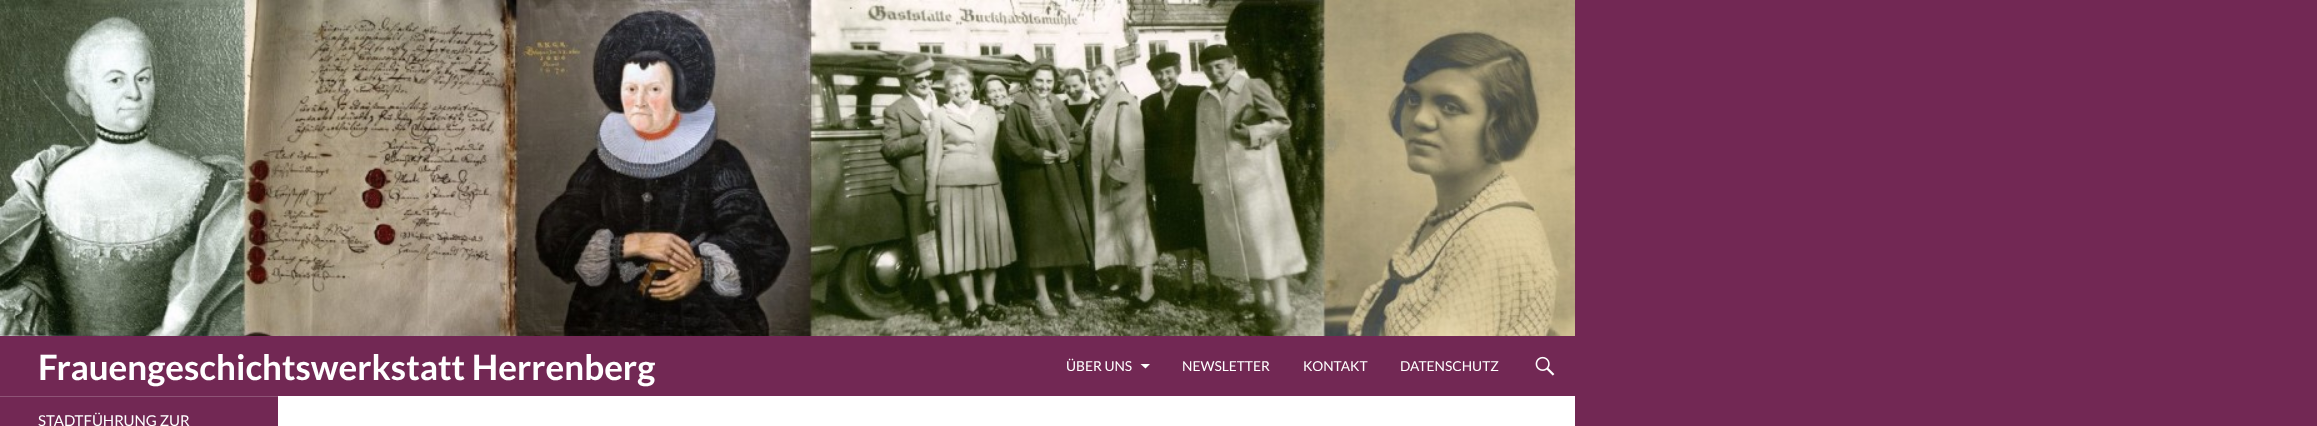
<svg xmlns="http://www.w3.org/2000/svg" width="2317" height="426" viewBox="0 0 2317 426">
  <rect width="100%" height="100%" fill="#722854"/>
  <path d="M278 396h1297v30H278z" fill="#fff"/>
  <image x="0" y="0" width="1575" height="336" href="img/1.png"/>
  <path d="M1140.5 364H1150L1145.5 368.5Z" fill="#fff"/>
  <image x="1535" y="356" width="20" height="20" href="img/2.png"/>
  <path d="M0 396h278v1H0z" fill="#8e5376"/>
  <text x="38" y="380" font-family="Lato" font-size="35" font-weight="bold" fill="#fff">Frauengeschichtswerkstatt Herrenberg</text>
  <g font-family="Lato" font-size="13.75" fill="#fff">
    <text x="1066" y="371">ÜBER UNS</text>
    <text x="1182" y="371">NEWSLETTER</text>
    <text x="1303" y="371">KONTAKT</text>
    <text x="1400" y="371">DATENSCHUTZ</text>
  </g>
  <text x="38" y="426" font-family="Lato" font-size="15" fill="#fff">STADTFÜHRUNG ZUR</text>
</svg>
